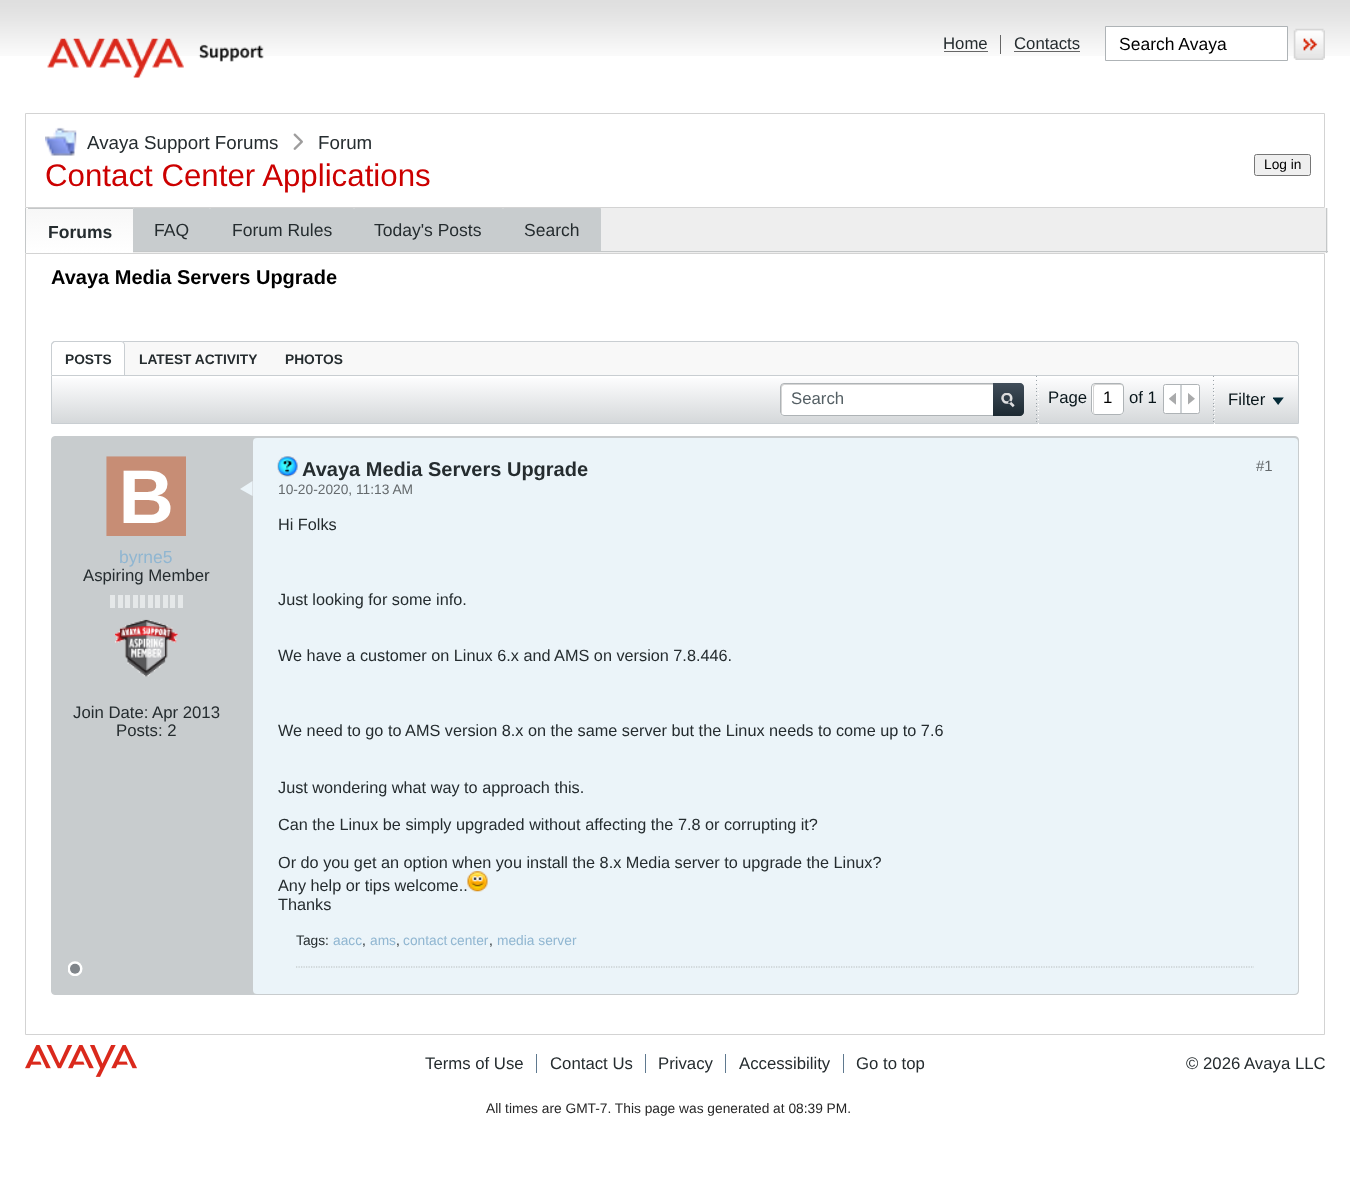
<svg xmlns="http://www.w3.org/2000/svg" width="1350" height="1181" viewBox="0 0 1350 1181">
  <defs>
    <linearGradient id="g1" gradientUnits="userSpaceOnUse" x1="79" y1="165" x2="79" y2="209"><stop offset="0" stop-color="#f7f7f7"/><stop offset="1" stop-color="#fff"/></linearGradient>
    <linearGradient id="g2" gradientUnits="userSpaceOnUse" x1="79" y1="209" x2="79" y2="253"><stop offset="0" stop-color="#f7f7f7"/><stop offset="1" stop-color="#fff"/></linearGradient>
    <linearGradient id="g3" gradientUnits="userSpaceOnUse" x1="675" y1="376" x2="675" y2="423"><stop offset="0" stop-color="#fefeff"/><stop offset="1" stop-color="#d5d8da"/></linearGradient>
    <linearGradient id="g4" gradientUnits="userSpaceOnUse" x1="1008" y1="383" x2="1008" y2="416"><stop offset="0" stop-color="#404d5a"/><stop offset="1" stop-color="#1c2931"/></linearGradient>
  </defs>
  <rect width="100%" height="100%" fill="#fff"/>
  <image x="0" y="0" width="1350" height="56" href="img/1.png"/>
  <image x="47" y="38" width="217" height="40" href="img/2.png"/>
  <path d="M944 51h44v1H944z" fill="#666"/>
  <path d="M1000 35h1v19H1000z" fill="#666"/>
  <path d="M1014 51h66v1H1014z" fill="#666"/>
  <path d="M1106 27h181v29H1106z" fill="#fff"/>
  <path d="M1105.5 26.5h182v34H1105.5z" fill="none" stroke="#aeb3b6"/>
  <image x="1293" y="28" width="32" height="32" href="img/3.png"/>
  <path d="M25.5 113.5h1299v94H25.5z" fill="none" stroke="#d3d3d3"/>
  <image x="45" y="127" width="32" height="29" href="img/4.png"/>
  <image x="293" y="133" width="10" height="17" href="img/5.png"/>
  <rect x="1254.5" y="154.5" width="56" height="21" rx="2" fill="#efefef" stroke="#767676"/>
  <path d="M26 208h1302v45H26z" fill="#eee"/>
  <path d="M1326 208h1v45H1326z" fill="#c4c7c8"/>
  <path d="M133 251h1195v1H133z" fill="#c4c7c8"/>
  <path d="M25 208h1v45H25z" fill="#c4c7c8"/>
  <path d="M27 208H132C132.5 208 133 208.5 133 209H26C26 208.5 26.5 208 27 208Z" fill="url(#g1)"/>
  <path d="M26 209h107v44H26z" fill="url(#g2)"/>
  <path d="M28 208h105v1H28z" fill="#c4c7c8"/>
  <path d="M134 208H209C209.5 208 210 208.5 210 209V251H133V209C133 208.5 133.5 208 134 208Z" fill="#c8ccce"/>
  <path d="M211 208H353C353.5 208 354 208.5 354 209V251H210V209C210 208.5 210.5 208 211 208Z" fill="#c8ccce"/>
  <path d="M355 208H502C502.5 208 503 208.5 503 209V251H354V209C354 208.5 354.5 208 355 208Z" fill="#c8ccce"/>
  <path d="M504 208H600C600.5 208 601 208.5 601 209V251H503V209C503 208.5 503.5 208 504 208Z" fill="#c8ccce"/>
  <path d="M25.5 253.5h1299v781H25.5z" fill="none" stroke="#d3d3d3"/>
  <path d="M55 341H1295C1297 341 1299 343 1299 345V375H51V345C51 343 53 341 55 341Z" fill="#f8f8f8"/>
  <path d="M55 341H1295C1297 341 1299 343 1299 345V375H51V345C51 343 53 341 55 341ZM55 342H1295C1296 342 1298 344 1298 345V375H52V345C52 344 54 342 55 342Z" fill="#c9ced2" fill-rule="evenodd"/>
  <path d="M55 341H121C123 341 125 343 125 345V375H51V345C51 343 53 341 55 341Z" fill="#fff"/>
  <path d="M55 341H121C123 341 125 343 125 345V375H51V345C51 343 53 341 55 341ZM55 342H121C123 342 124 344 124 345V375H52V345C52 344 54 342 55 342Z" fill="#c9ced2" fill-rule="evenodd"/>
  <path d="M52 378h1246v45H52z" fill="url(#g3)"/>
  <path d="M51.5 375.5h1247v48H51.5z" fill="none" stroke="#c9ced2"/>
  <rect x="780" y="383" width="244" height="33" rx="4" fill="#fff"/>
  <path d="M785 385H1023C1022 385 1021 384 1020 384H784C782 384 781 385 781 386V412C781 413 782 414 782 415V392C782 390 781 385 785 385Z" fill="#d5d5d5"/>
  <rect x="780.5" y="383.5" width="243" height="32" rx="3.5" fill="none" stroke="#aeb3b6"/>
  <path d="M993 383H1020C1022 383 1024 385 1024 387V412C1024 414 1022 416 1020 416H993Z" fill="url(#g4)"/>
  <image x="1001" y="393" width="14" height="15" href="img/6.png"/>
  <image x="1036" y="376" width="1" height="46" href="img/7.png"/>
  <image x="1038" y="381" width="1" height="43" href="img/8.png"/>
  <rect x="1091" y="383" width="33" height="32" rx="4" fill="#fff"/>
  <path d="M1096 385H1121L1122.5 385.5C1122.5 384.5 1121.5 384 1120.5 384H1095.5C1094 384 1093 385 1093 386.5V411.5C1093 412.5 1093.5 413.5 1094.5 413.5L1094 412V388C1094 386 1095 385 1096 385Z" fill="#d5d5d5"/>
  <rect x="1091.5" y="383.5" width="32" height="31" rx="3.5" fill="none" stroke="#aeb3b6"/>
  <rect x="1163.5" y="384.5" width="36" height="29" rx="2" fill="#fff" stroke="#aeb3b6"/>
  <path d="M1180 385h2v28H1180z" fill="#cdd1d4"/>
  <image x="1169" y="393" width="7" height="12" href="img/9.png"/>
  <image x="1188" y="393" width="7" height="12" href="img/10.png"/>
  <image x="1213" y="376" width="1" height="46" href="img/7.png"/>
  <image x="1214" y="381" width="1" height="43" href="img/8.png"/>
  <image x="1273" y="397" width="11" height="8" href="img/11.png"/>
  <rect x="51.5" y="436.5" width="1247" height="558" rx="3.5" fill="#c8ccce" stroke="#c8ccce"/>
  <image x="106" y="456" width="80" height="80" href="img/12.png"/>
  <path d="M110 595h5v13H110z" fill="#e5e8e9"/>
  <path d="M118 595h5v13H118z" fill="#e5e8e9"/>
  <path d="M125 595h5v13H125z" fill="#e5e8e9"/>
  <path d="M133 595h5v13H133z" fill="#e5e8e9"/>
  <path d="M140 595h5v13H140z" fill="#e5e8e9"/>
  <path d="M148 595h5v13H148z" fill="#e5e8e9"/>
  <path d="M155 595h5v13H155z" fill="#e5e8e9"/>
  <path d="M163 595h5v13H163z" fill="#e5e8e9"/>
  <path d="M170 595h5v13H170z" fill="#e5e8e9"/>
  <path d="M178 595h5v13H178z" fill="#e5e8e9"/>
  <image x="115" y="619" width="63" height="58" href="img/13.png"/>
  <image x="68" y="961" width="15" height="15" href="img/14.png"/>
  <rect x="253" y="438" width="1045" height="556" rx="4" fill="#ebf4f9"/>
  <path d="M252.5 481V496L240 489Z" fill="#ebf4f9"/>
  <image x="277" y="456" width="21" height="21" href="img/15.png"/>
  <path d="M296 967H1254" fill="none" stroke="#b7bcbe" stroke-width="1.2" stroke-dasharray="1.25 1.25"/>
  <image x="25" y="1045" width="112" height="32" href="img/17.png"/>
  <path d="M536 1054h1v19H536z" fill="#5f798f"/>
  <path d="M645 1054h1v19H645z" fill="#5f798f"/>
  <path d="M725 1054h1v19H725z" fill="#5f798f"/>
  <path d="M843 1054h1v19H843z" fill="#5f798f"/>
  <g font-family="Liberation Sans" font-size="16.75" fill="#252c2f">
    <text x="943" y="49">Home</text>
    <text x="1014" y="49">Contacts</text>
  </g>
  <text x="1119" y="50" font-family="Liberation Sans" font-size="17.5" fill="#000">Search Avaya</text>
  <g font-family="Liberation Sans" font-size="18.75" fill="#252c2f">
    <text x="87" y="149">Avaya Support Forums</text>
    <text x="318" y="149">Forum</text>
  </g>
  <text x="45" y="186" font-family="Liberation Sans" font-size="31.25" fill="#c00">Contact Center Applications</text>
  <text x="1264" y="169" font-family="Liberation Sans" font-size="13.75" fill="#000">Log in</text>
  <text x="48" y="238" font-family="Liberation Sans" font-size="17.5" font-weight="bold" fill="#252c2f">Forums</text>
  <g font-family="Liberation Sans" font-size="17.5" fill="#252c2f">
    <text x="154" y="236">FAQ</text>
    <text x="232" y="236">Forum Rules</text>
    <text x="374" y="236">Today's Posts</text>
    <text x="524" y="236">Search</text>
  </g>
  <text x="51" y="284" font-family="Liberation Sans" font-size="20" font-weight="bold" fill="#000">Avaya Media Servers Upgrade</text>
  <g font-family="Liberation Sans" font-size="13.75" font-weight="bold" fill="#252c2f">
    <text x="65" y="364">POSTS</text>
    <text x="139" y="364">LATEST ACTIVITY</text>
    <text x="285" y="364">PHOTOS</text>
  </g>
  <text x="791" y="404" font-family="Liberation Sans" font-size="16.75" fill="#556065">Search</text>
  <text x="1048" y="403" font-family="Liberation Sans" font-size="16.75" fill="#09161b">Page</text>
  <text x="1103" y="403" font-family="Liberation Sans" font-size="16.75" fill="#000">1</text>
  <g font-family="Liberation Sans" font-size="16.75" fill="#09161b">
    <text x="1129" y="403">of 1</text>
    <text x="1228" y="405">Filter</text>
  </g>
  <text x="119" y="563" font-family="Liberation Sans" font-size="17.5" fill="#90b6d1">byrne5</text>
  <g font-family="Liberation Sans" font-size="16.75" fill="#252c2f">
    <text x="83" y="581">Aspiring Member</text>
    <text x="73" y="718">Join Date:</text>
    <text x="152" y="718">Apr 2013</text>
    <text x="116" y="736">Posts: 2</text>
  </g>
  <text x="302" y="476" font-family="Liberation Sans" font-size="20" font-weight="bold" fill="#252c2f">Avaya Media Servers Upgrade</text>
  <text x="278" y="494" font-family="Liberation Sans" font-size="13.75" fill="#656a6d">10-20-2020, 11:13 AM</text>
  <text x="1256" y="471" font-family="Liberation Sans" font-size="15" fill="#656a6d">#1</text>
  <g font-family="Liberation Sans" font-size="16.25" fill="#252c2f">
    <text x="278" y="530">Hi Folks</text>
    <text x="278" y="605">Just looking for some info.</text>
    <text x="278" y="661">We have a customer on Linux 6.x and AMS on version 7.8.446.</text>
    <text x="278" y="736">We need to go to AMS version 8.x on the same server but the Linux needs to come up to 7.6</text>
    <text x="278" y="793">Just wondering what way to approach this.</text>
    <text x="278" y="830">Can the Linux be simply upgraded without affecting the 7.8 or corrupting it?</text>
    <text x="278" y="868">Or do you get an option when you install the 8.x Media server to upgrade the Linux?</text>
    <text x="278" y="891">Any help or tips welcome..</text>
  </g>
  <image x="467" y="871" width="21" height="21" href="img/16.png"/>
  <text x="278" y="910" font-family="Liberation Sans" font-size="16.25" fill="#252c2f">Thanks</text>
  <text x="296" y="945" font-family="Liberation Sans" font-size="13.75" fill="#252c2f">Tags:</text>
  <text x="333" y="945" font-family="Liberation Sans" font-size="13.75" fill="#90b6d1">aacc</text>
  <text x="362" y="945" font-family="Liberation Sans" font-size="13.75" fill="#252c2f">,</text>
  <text x="370" y="945" font-family="Liberation Sans" font-size="13.75" fill="#90b6d1">ams</text>
  <text x="396" y="945" font-family="Liberation Sans" font-size="13.75" fill="#252c2f">,</text>
  <text x="403" y="945" word-spacing="-1" font-family="Liberation Sans" font-size="13.75" fill="#90b6d1">contact center</text>
  <text x="489" y="945" font-family="Liberation Sans" font-size="13.75" fill="#252c2f">,</text>
  <text x="497" y="945" font-family="Liberation Sans" font-size="13.75" fill="#90b6d1">media server</text>
  <g font-family="Liberation Sans" font-size="16.75" fill="#252c2f">
    <text x="425" y="1069">Terms of Use</text>
    <text x="550" y="1069">Contact Us</text>
    <text x="658" y="1069">Privacy</text>
    <text x="739" y="1069">Accessibility</text>
    <text x="856" y="1069">Go to top</text>
    <text x="1186" y="1069">© 2026 Avaya LLC</text>
  </g>
  <text x="486" y="1113" font-family="Liberation Sans" font-size="13.75" fill="#272727">All times are GMT-7. This page was generated at 08:39 PM.</text>
</svg>
